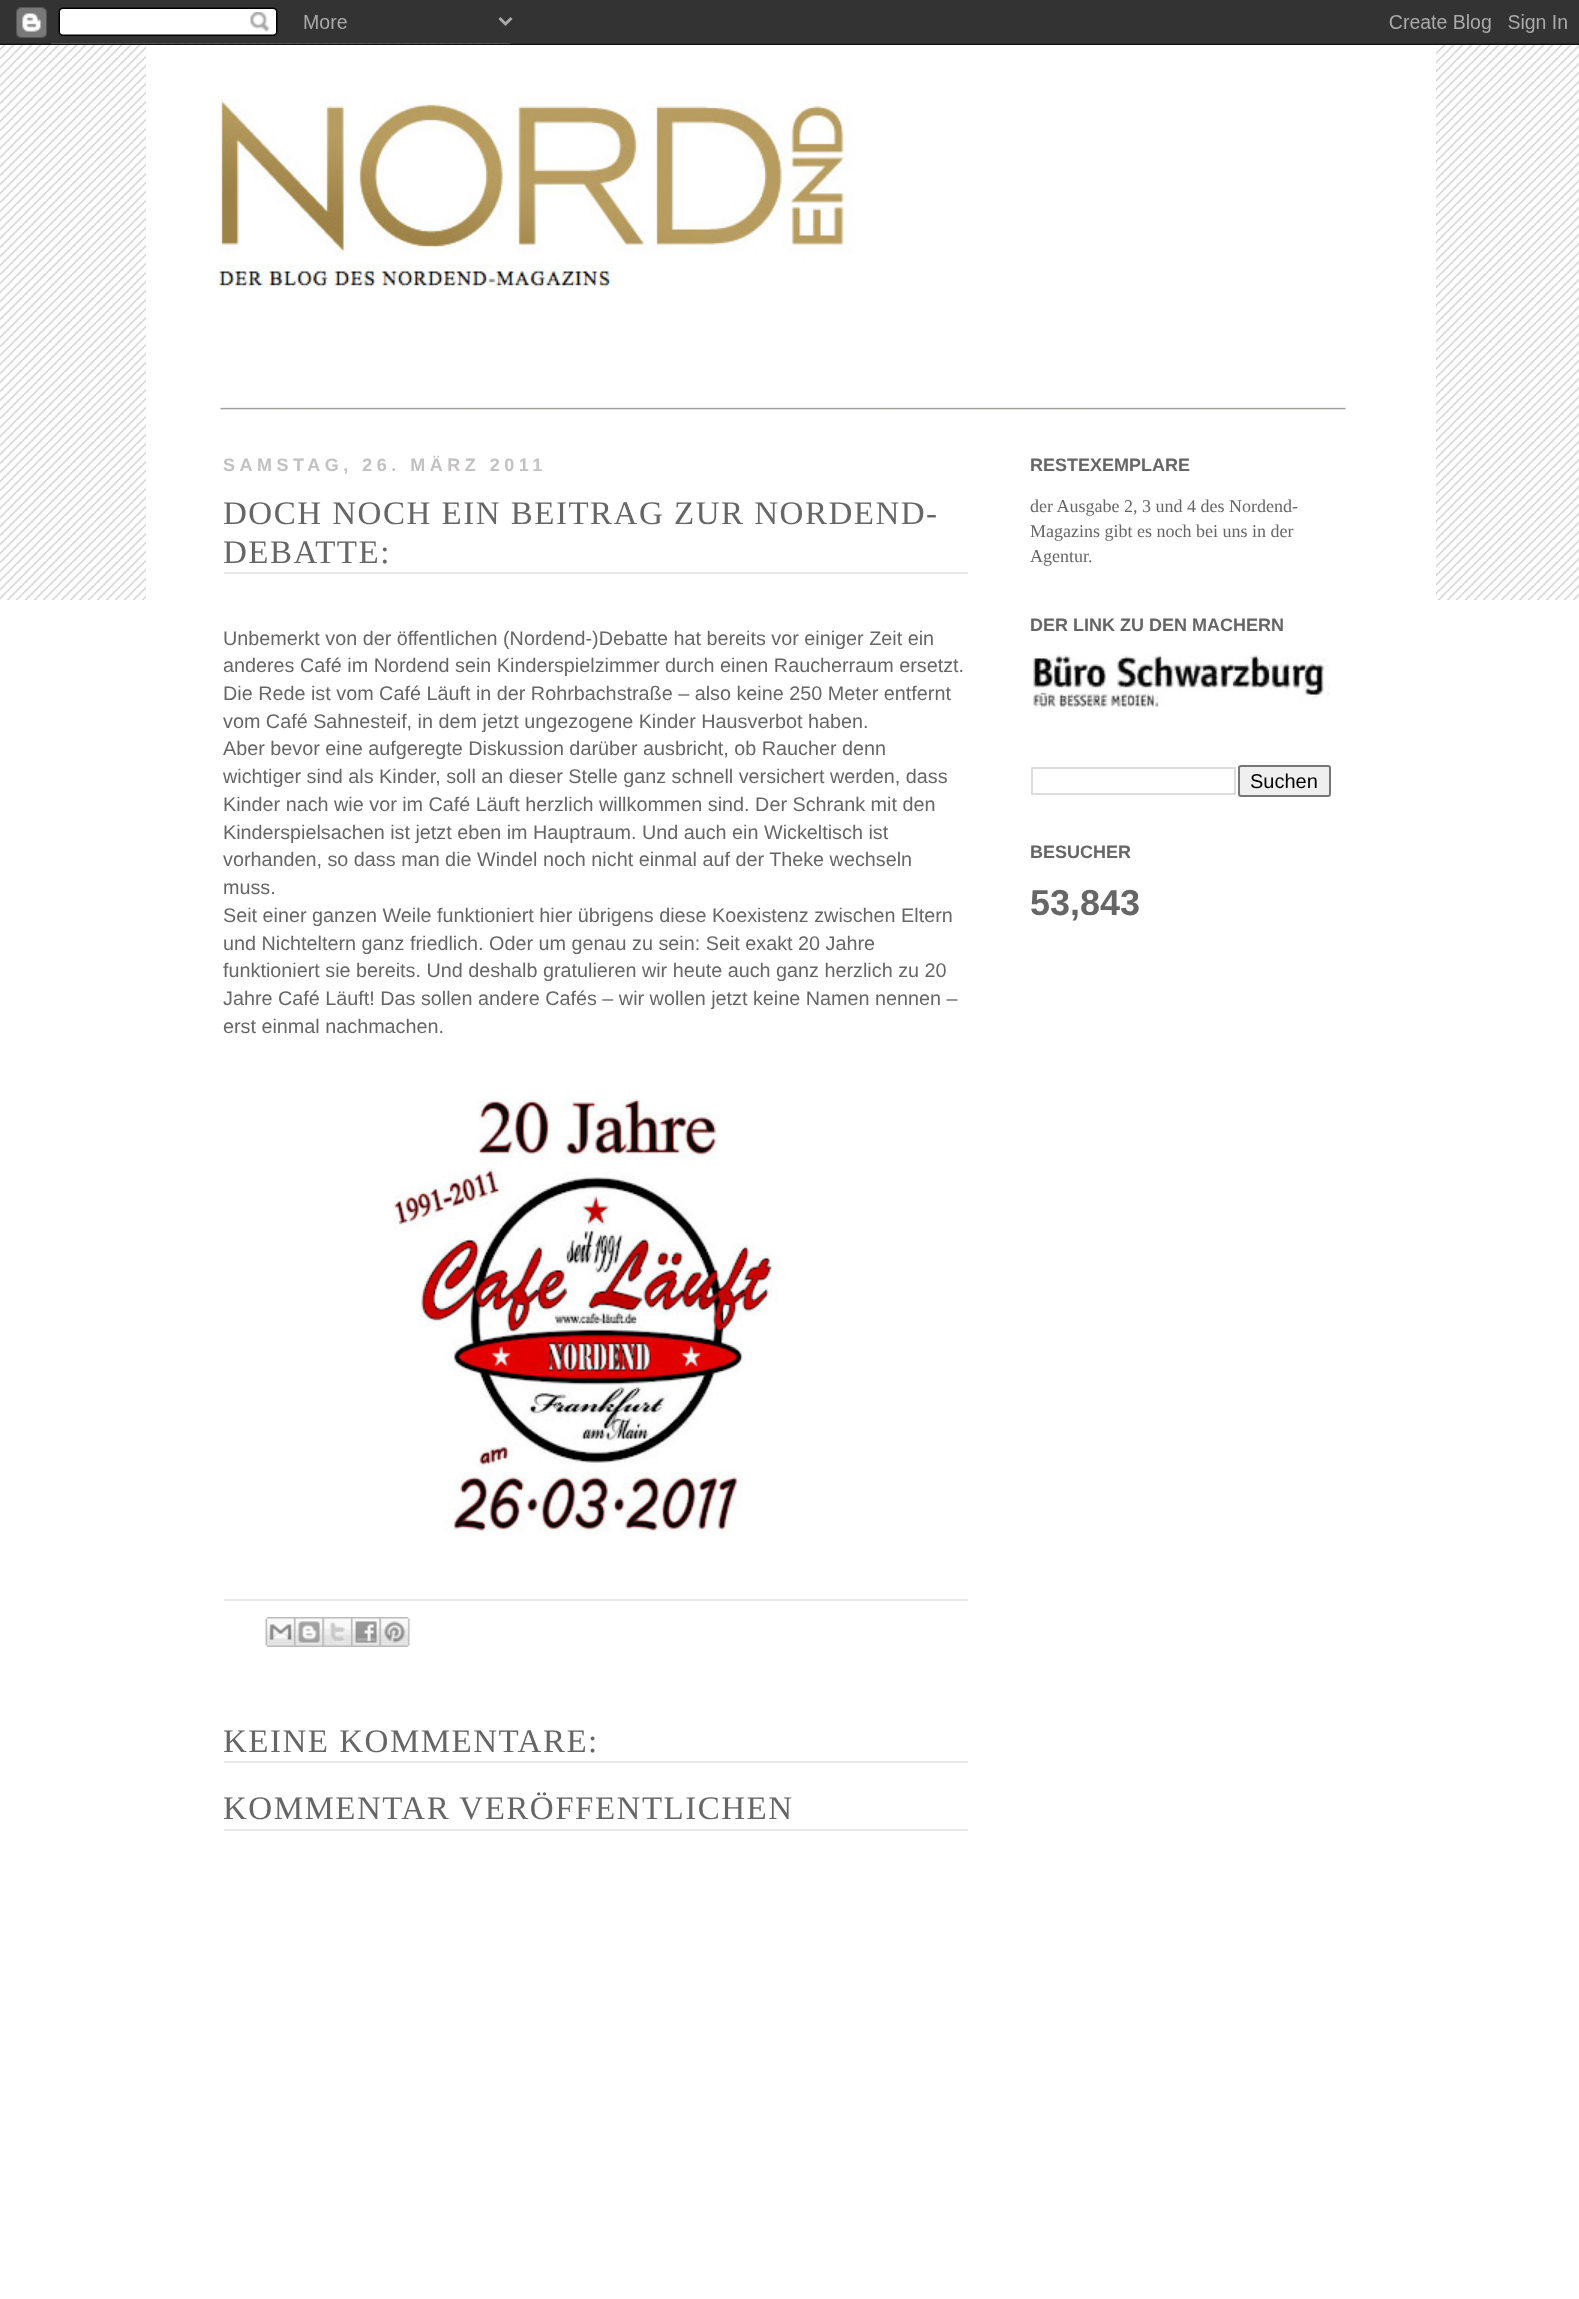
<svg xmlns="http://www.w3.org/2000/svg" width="1579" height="2299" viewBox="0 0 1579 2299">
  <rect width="100%" height="100%" fill="#fff"/>
  <image x="0" y="43" width="1579" height="557" href="img/2.png"/>
  <image x="0" y="0" width="1579" height="45" href="img/1.png"/>
  <path d="M146 45h1290v555H146z" fill="#fff"/>
  <image x="218" y="96" width="1128" height="314" href="img/3.png"/>
  <path d="M224 572h744v2H224z" fill="#e9e9e9"/>
  <path d="M224 1599h744v2H224z" fill="#e9e9e9"/>
  <image x="394" y="1099" width="385" height="433" href="img/4.png"/>
  <image x="265" y="1617" width="29" height="30" href="img/5.png"/>
  <image x="294" y="1617" width="29" height="30" href="img/6.png"/>
  <image x="322" y="1617" width="29" height="30" href="img/7.png"/>
  <image x="351" y="1617" width="29" height="30" href="img/8.png"/>
  <image x="379" y="1617" width="31" height="30" href="img/9.png"/>
  <path d="M224 1761h744v2H224z" fill="#e9e9e9"/>
  <path d="M224 1829h744v2H224z" fill="#e9e9e9"/>
  <image x="1033" y="655" width="297" height="53" href="img/10.png"/>
  <path d="M1032 768h203v26H1032z" fill="none" stroke="#ddd" stroke-width="2"/>
  <rect x="1239" y="766" width="91" height="30" rx="2" fill="#efefef" stroke="#767676" stroke-width="2"/>
  <text x="223" y="471" font-family="Liberation Sans" font-size="18" font-weight="bold" letter-spacing="4.5" fill="#c3c1c1">SAMSTAG, 26. MÄRZ 2011</text>
  <g font-family="Liberation Serif" font-size="33" letter-spacing="1.5" fill="#666">
    <text x="223" y="524">DOCH NOCH EIN BEITRAG ZUR NORDEND-</text>
    <text x="223" y="563">DEBATTE:</text>
  </g>
  <g font-family="Liberation Sans" font-size="19.8" fill="#666">
    <text x="223" y="645">Unbemerkt von der öffentlichen (Nordend-)Debatte hat bereits vor einiger Zeit ein</text>
    <text x="223" y="672">anderes Café im Nordend sein Kinderspielzimmer durch einen Raucherraum ersetzt.</text>
    <text x="223" y="700">Die Rede ist vom Café Läuft in der Rohrbachstraße – also keine 250 Meter entfernt</text>
    <text x="223" y="728">vom Café Sahnesteif, in dem jetzt ungezogene Kinder Hausverbot haben.</text>
    <text x="223" y="755">Aber bevor eine aufgeregte Diskussion darüber ausbricht, ob Raucher denn</text>
    <text x="223" y="783">wichtiger sind als Kinder, soll an dieser Stelle ganz schnell versichert werden, dass</text>
    <text x="223" y="811">Kinder nach wie vor im Café Läuft herzlich willkommen sind. Der Schrank mit den</text>
    <text x="223" y="839">Kinderspielsachen ist jetzt eben im Hauptraum. Und auch ein Wickeltisch ist</text>
    <text x="223" y="866">vorhanden, so dass man die Windel noch nicht einmal auf der Theke wechseln</text>
    <text x="223" y="894">muss.</text>
    <text x="223" y="922">Seit einer ganzen Weile funktioniert hier übrigens diese Koexistenz zwischen Eltern</text>
    <text x="223" y="950">und Nichteltern ganz friedlich. Oder um genau zu sein: Seit exakt 20 Jahre</text>
    <text x="223" y="977">funktioniert sie bereits. Und deshalb gratulieren wir heute auch ganz herzlich zu 20</text>
    <text x="223" y="1005">Jahre Café Läuft! Das sollen andere Cafés – wir wollen jetzt keine Namen nennen –</text>
    <text x="223" y="1033">erst einmal nachmachen.</text>
  </g>
  <g font-family="Liberation Serif" font-size="33" letter-spacing="1.5" fill="#666">
    <text x="223" y="1752">KEINE KOMMENTARE:</text>
    <text x="223" y="1819">KOMMENTAR VERÖFFENTLICHEN</text>
  </g>
  <text x="1030" y="471" font-family="Liberation Sans" font-size="18" font-weight="bold" fill="#666">RESTEXEMPLARE</text>
  <g font-family="Liberation Serif" font-size="18" fill="#666">
    <text x="1030" y="512">der Ausgabe 2, 3 und 4 des Nordend-</text>
    <text x="1030" y="537">Magazins gibt es noch bei uns in der</text>
    <text x="1030" y="562">Agentur.</text>
  </g>
  <text x="1030" y="631" font-family="Liberation Sans" font-size="18" font-weight="bold" fill="#666">DER LINK ZU DEN MACHERN</text>
  <text x="1250" y="788" font-family="Liberation Sans" font-size="20" fill="#000">Suchen</text>
  <text x="1030" y="858" font-family="Liberation Sans" font-size="18" font-weight="bold" fill="#666">BESUCHER</text>
  <text x="1030" y="915" font-family="Liberation Sans" font-size="36" font-weight="bold" fill="#666">53,843</text>
</svg>
